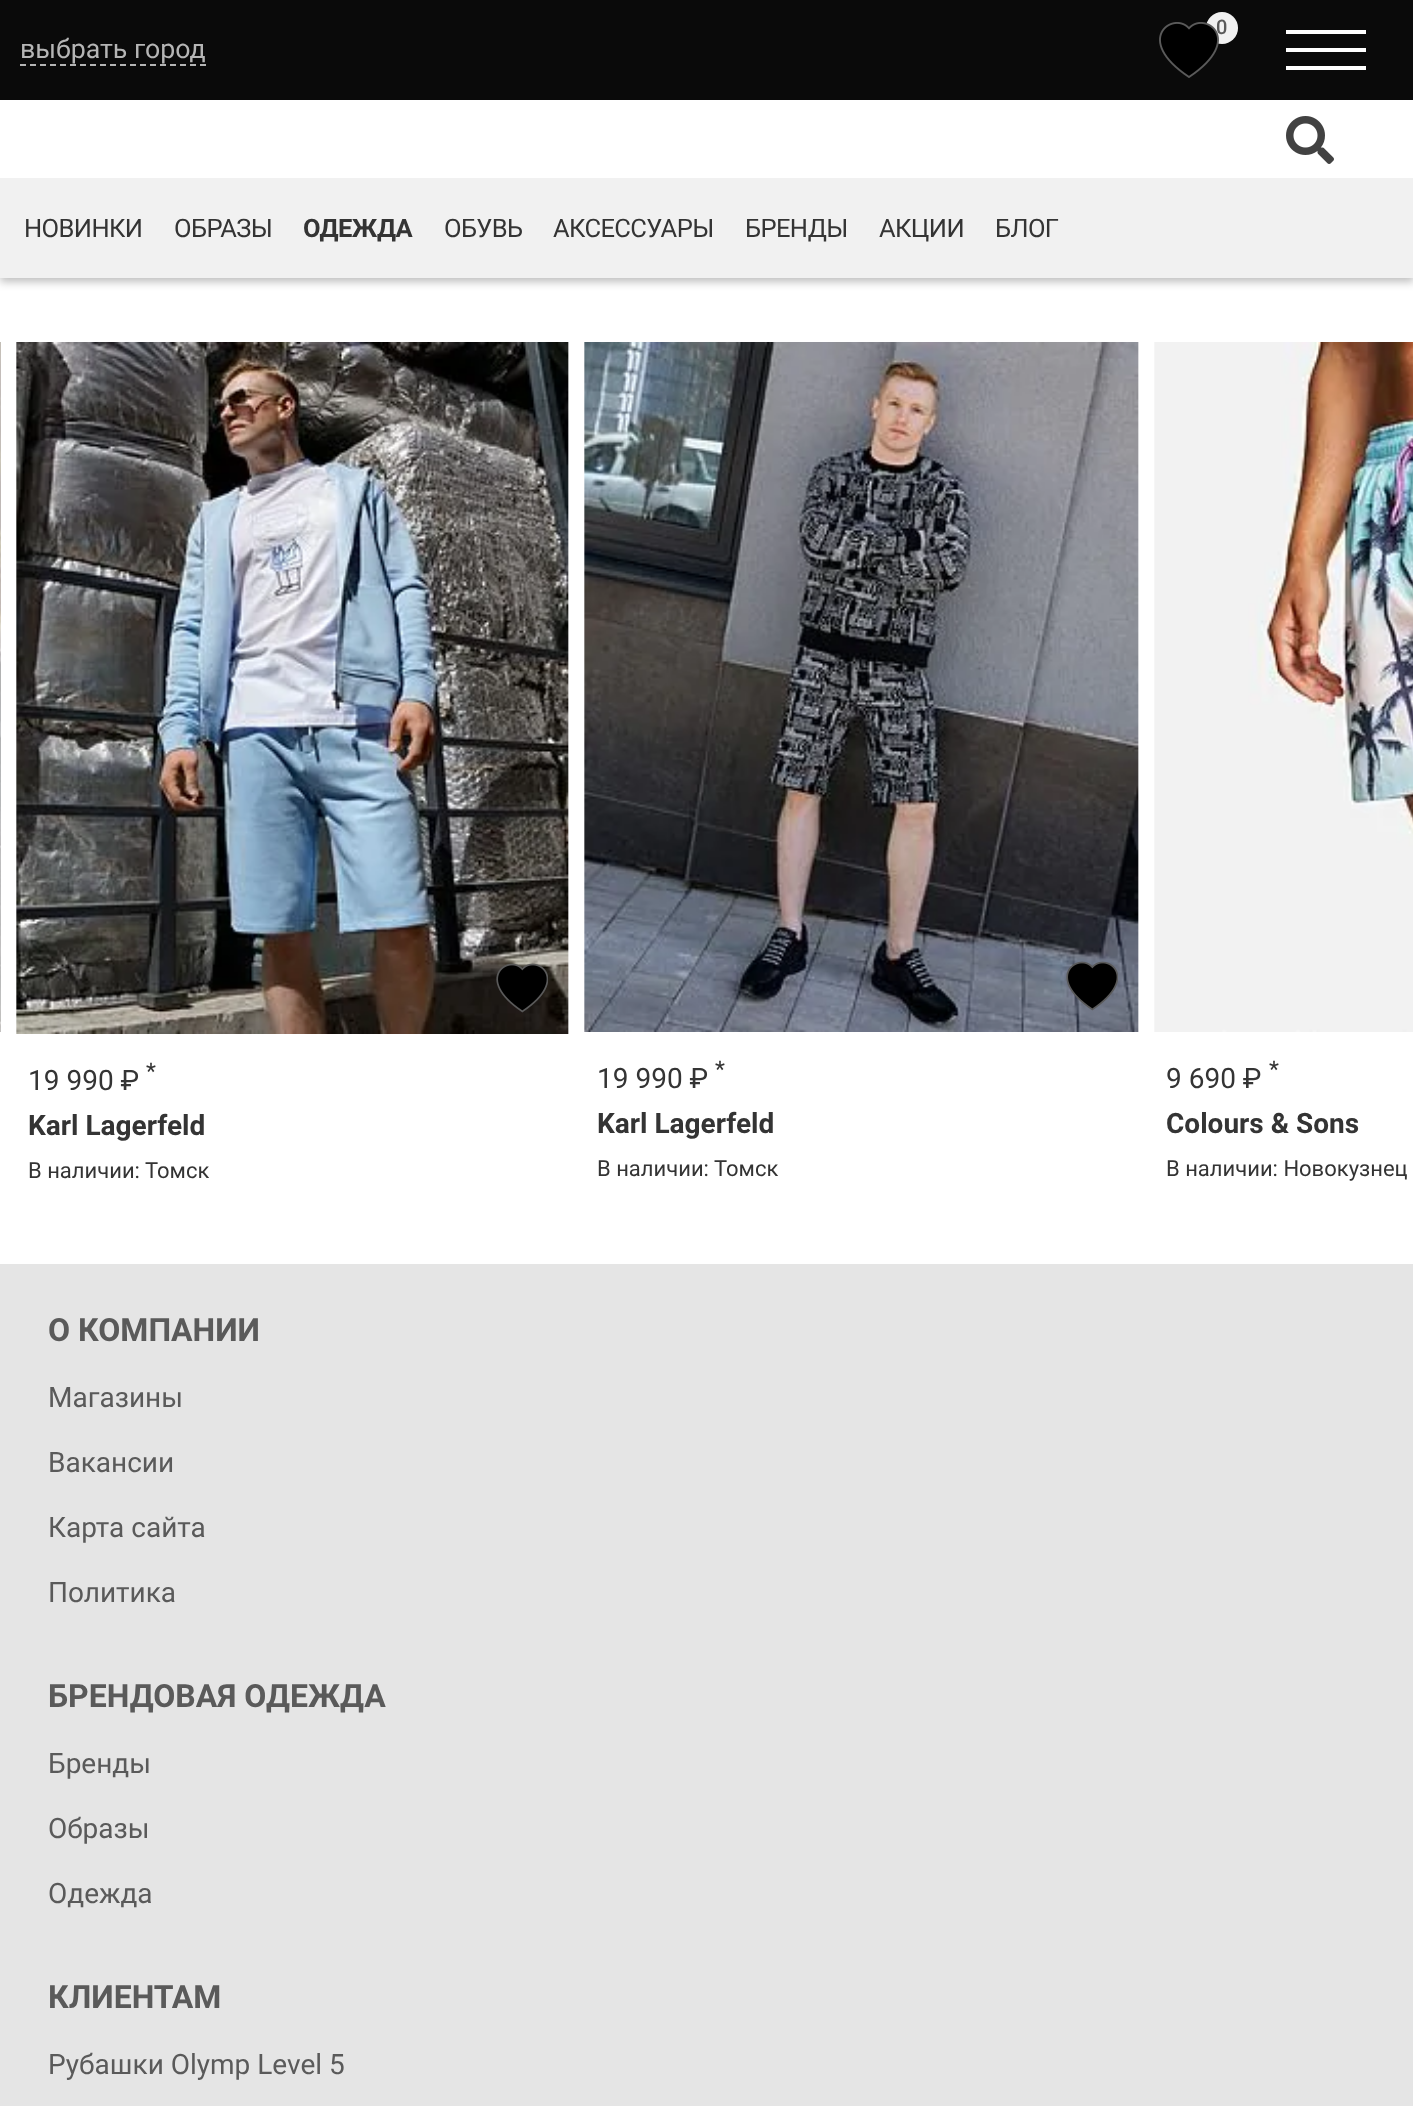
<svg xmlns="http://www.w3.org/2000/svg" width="1413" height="2106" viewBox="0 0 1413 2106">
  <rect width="100%" height="100%" fill="#fff"/>
  <path d="M0 4h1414v278H0z" fill="#00000040" filter="blur(4px)"/>
  <path d="M0 100h1413v78H0z" fill="#fff"/>
  <path d="M0 0h1413v100H0z" fill="#0a0a0a"/>
  <circle cx="1222" cy="28" r="16" fill="#f1f1f1"/>
  <path d="M20 65H206" fill="none" stroke="#b5b5b5" stroke-width="2" stroke-dasharray="6 4"/>
  <path d="M1286 30h80v4H1286z" fill="#fff"/>
  <path d="M1286 48h80v4H1286z" fill="#fff"/>
  <path d="M1286 66h80v4H1286z" fill="#fff"/>
  <image x="1286" y="116" width="48" height="48" href="img/2.png"/>
  <path d="M0 178h1413v100H0z" fill="#f1f1f1"/>
  <image x="0" y="342" width="1" height="690" href="img/3.png"/>
  <image x="16" y="342" width="553" height="692" href="img/4.png"/>
  <image x="496" y="963" width="52" height="50" href="img/5.png"/>
  <image x="584" y="342" width="555" height="690" href="img/6.png"/>
  <image x="1066" y="961" width="52" height="50" href="img/7.png"/>
  <image x="1154" y="342" width="259" height="690" href="img/8.png"/>
  <path d="M0 1264h1413v842H0z" fill="#e5e5e5"/>
  <text x="1216" y="34" font-family="Roboto" font-size="20" font-weight="500" fill="#5a5a5a">0</text>
  <image x="1159" y="22" width="60" height="56" href="img/1.png"/>
  <text x="20" y="58" font-family="Roboto" font-size="26.75" fill="#b5b5b5">выбрать город</text>
  <g font-family="Roboto" font-size="25.5" letter-spacing="-0.6" fill="#343434">
    <text x="24" y="237">НОВИНКИ</text>
    <text x="174" y="237">ОБРАЗЫ</text>
  </g>
  <text x="303" y="237" font-family="Roboto" font-size="25.5" font-weight="bold" letter-spacing="-0.6" fill="#343434">ОДЕЖДА</text>
  <g font-family="Roboto" font-size="25.5" letter-spacing="-0.6" fill="#343434">
    <text x="444" y="237">ОБУВЬ</text>
    <text x="553" y="237">АКСЕССУАРЫ</text>
    <text x="745" y="237">БРЕНДЫ</text>
    <text x="879" y="237">АКЦИИ</text>
    <text x="995" y="237">БЛОГ</text>
  </g>
  <text x="146" y="1079" font-family="Roboto" font-size="23" fill="#343434">*</text>
  <text x="28" y="1090" font-family="Roboto" font-size="28" fill="#343434">19 990 ₽</text>
  <text x="28" y="1135" font-family="Roboto" font-size="28" font-weight="bold" fill="#343434">Karl Lagerfeld</text>
  <text x="28" y="1178" font-family="Roboto" font-size="22" fill="#343434">В наличии: Томск</text>
  <text x="715" y="1077" font-family="Roboto" font-size="23" fill="#343434">*</text>
  <text x="597" y="1088" font-family="Roboto" font-size="28" fill="#343434">19 990 ₽</text>
  <text x="597" y="1133" font-family="Roboto" font-size="28" font-weight="bold" fill="#343434">Karl Lagerfeld</text>
  <text x="597" y="1176" font-family="Roboto" font-size="22" fill="#343434">В наличии: Томск</text>
  <text x="1269" y="1077" font-family="Roboto" font-size="23" fill="#343434">*</text>
  <text x="1166" y="1088" font-family="Roboto" font-size="28" fill="#343434">9 690 ₽</text>
  <text x="1166" y="1133" font-family="Roboto" font-size="28" font-weight="bold" fill="#343434">Colours &amp; Sons</text>
  <text x="1166" y="1176" font-family="Roboto" font-size="22" fill="#343434">В наличии: Новокузнец</text>
  <text x="48" y="1341" font-family="Roboto" font-size="32" font-weight="bold" fill="#5a5a5a">О КОМПАНИИ</text>
  <g font-family="Roboto" font-size="28" fill="#5a5a5a">
    <text x="48" y="1407">Магазины</text>
    <text x="48" y="1472">Вакансии</text>
    <text x="48" y="1537">Карта сайта</text>
    <text x="48" y="1602">Политика</text>
  </g>
  <text x="48" y="1707" font-family="Roboto" font-size="32" font-weight="bold" fill="#5a5a5a">БРЕНДОВАЯ ОДЕЖДА</text>
  <g font-family="Roboto" font-size="28" fill="#5a5a5a">
    <text x="48" y="1773">Бренды</text>
    <text x="48" y="1838">Образы</text>
    <text x="48" y="1903">Одежда</text>
  </g>
  <text x="48" y="2008" font-family="Roboto" font-size="32" font-weight="bold" fill="#5a5a5a">КЛИЕНТАМ</text>
  <text x="48" y="2074" font-family="Roboto" font-size="28" fill="#5a5a5a">Рубашки Olymp Level 5</text>
</svg>
